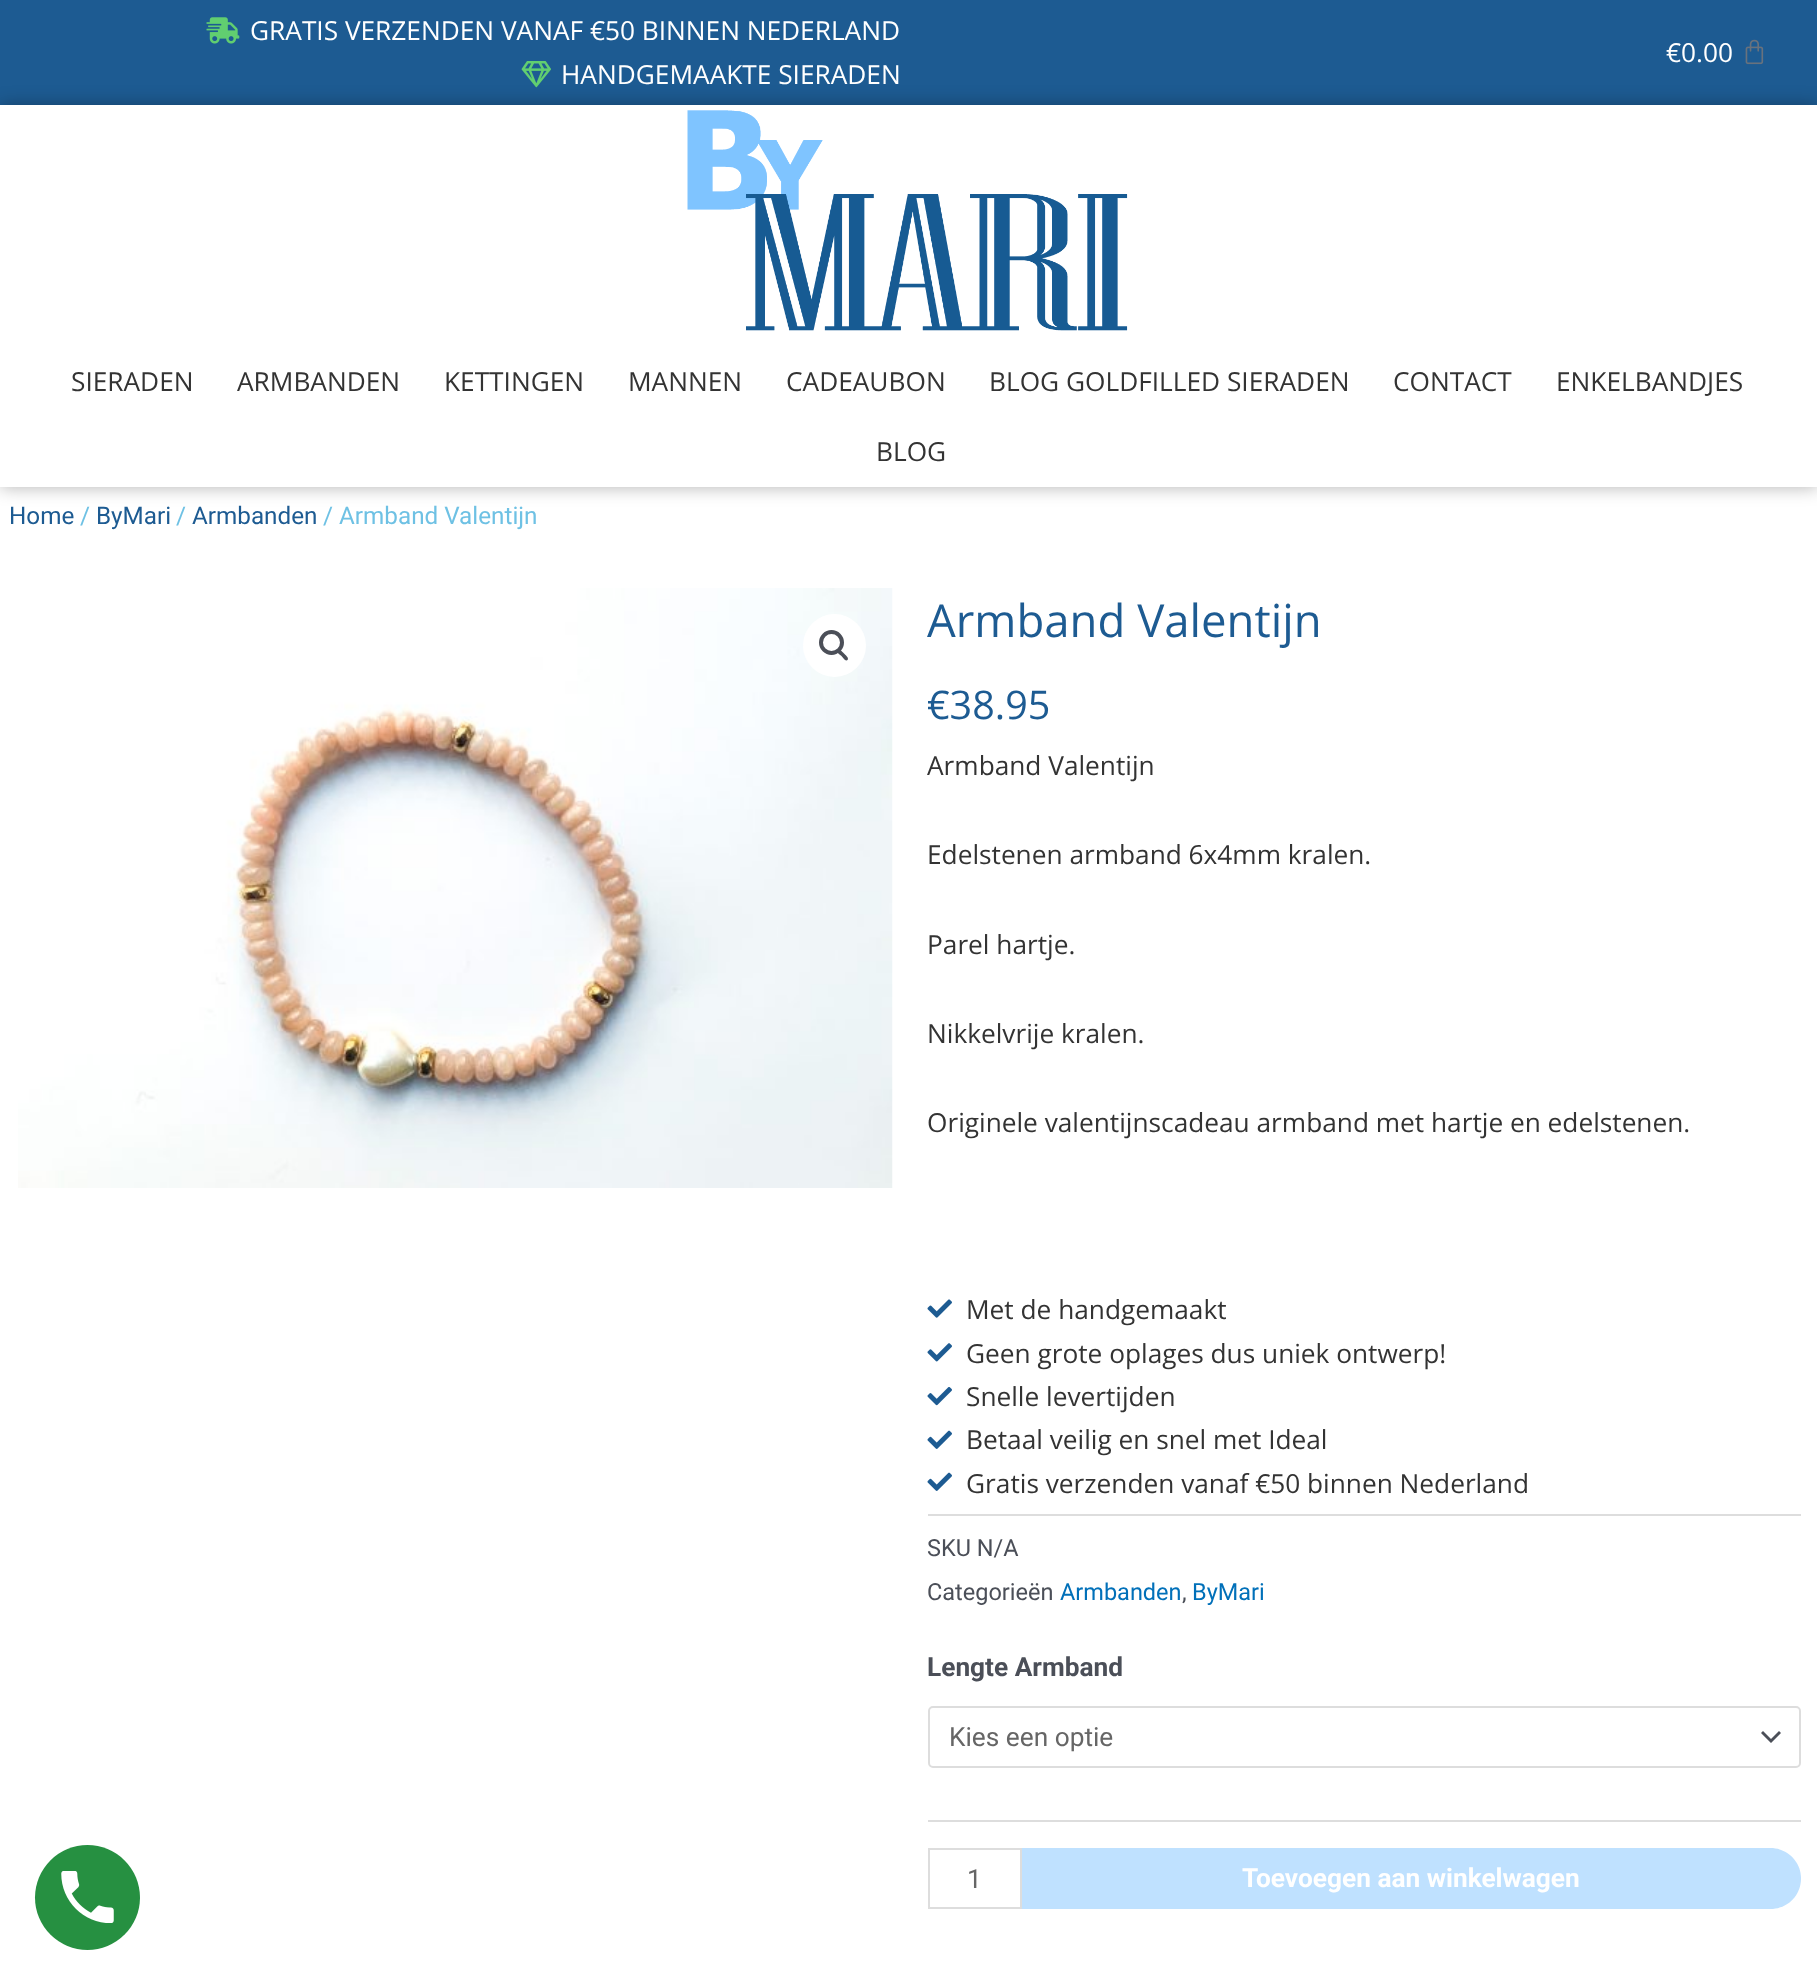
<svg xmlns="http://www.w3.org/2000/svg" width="1817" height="1984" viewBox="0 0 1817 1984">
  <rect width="100%" height="100%" fill="#fff"/>
  <path d="M0 0h1817v105H0z" fill="#1d5b92"/>
  <image x="206" y="17" width="34" height="27" href="img/1.png"/>
  <image x="521" y="61" width="30" height="27" href="img/2.png"/>
  <image x="1745" y="39" width="19" height="26" href="img/3.png"/>
  <path d="M0 105h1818v382H0z" fill="#0000004d" filter="blur(9px)"/>
  <path d="M0 105h1817v382H0z" fill="#fff"/>
  <image x="687" y="110" width="441" height="221" href="img/4.png"/>
  <image x="18" y="588" width="875" height="600" href="img/5.png"/>
  <circle cx="834.5" cy="645.5" r="31.5" fill="#fff"/>
  <circle cx="831.5" cy="642.5" r="10.5" fill="none" stroke="#4b4f58" stroke-width="4"/>
  <path d="M837.5 650C839.5 648 843 652.5 844 653.5C845 654.5 849.5 658 847.5 660C845.5 662 842.5 657 841.5 656C840.5 655 835.5 652 837.5 650Z" fill="#4b4f58"/>
  <image x="927" y="1299" width="25" height="19" href="img/6.png"/>
  <image x="927" y="1343" width="25" height="19" href="img/7.png"/>
  <image x="927" y="1387" width="25" height="19" href="img/8.png"/>
  <image x="927" y="1430" width="25" height="19" href="img/9.png"/>
  <image x="927" y="1472" width="25" height="19" href="img/9.png"/>
  <path d="M928 1514h873v2H928z" fill="#ddd"/>
  <path d="M928 1820h873v2H928z" fill="#ddd"/>
  <path d="M1761 1733L1771 1743L1781 1733L1779 1731L1771 1739L1763 1731Z" fill="#4b4f58"/>
  <rect x="929" y="1707" width="871" height="60" rx="4" fill="none" stroke="#ddd" stroke-width="2"/>
  <path d="M929 1849h92v59H929z" fill="none" stroke="#ddd" stroke-width="2"/>
  <path d="M1022 1848H1770.5C1787.5 1848 1801 1861.5 1801 1878.5C1801 1895.5 1787.5 1909 1770.5 1909H1022Z" fill="#bfe1ff"/>
  <circle cx="87.5" cy="1897.5" r="52.5" fill="#269041"/>
  <image x="61" y="1871" width="53" height="52" href="img/10.png"/>
  <g font-family="Open Sans" font-size="26.25" fill="#fff">
    <text x="250" y="40">GRATIS VERZENDEN VANAF €50 BINNEN NEDERLAND</text>
    <text x="561" y="84">HANDGEMAAKTE SIERADEN</text>
    <text x="1666" y="62">€0.00</text>
  </g>
  <g font-family="Open Sans" font-size="26.25" fill="#333">
    <text x="71" y="391">SIERADEN</text>
    <text x="237" y="391">ARMBANDEN</text>
    <text x="444" y="391">KETTINGEN</text>
    <text x="628" y="391">MANNEN</text>
    <text x="786" y="391">CADEAUBON</text>
    <text x="989" y="391">BLOG GOLDFILLED SIERADEN</text>
    <text x="1393" y="391">CONTACT</text>
    <text x="1556" y="391">ENKELBANDJES</text>
    <text x="876" y="461">BLOG</text>
  </g>
  <text x="9" y="524" font-family="Roboto" font-size="24.25" fill="#1d5b92">Home</text>
  <text x="80" y="524" font-family="Roboto" font-size="24.25" fill="#6ec1e4">/</text>
  <text x="96" y="524" font-family="Roboto" font-size="24.25" fill="#1d5b92">ByMari</text>
  <text x="176" y="524" font-family="Roboto" font-size="24.25" fill="#6ec1e4">/</text>
  <text x="192" y="524" font-family="Roboto" font-size="24.25" fill="#1d5b92">Armbanden</text>
  <text x="323" y="524" font-family="Roboto" font-size="24.25" fill="#6ec1e4">/ Armband Valentijn</text>
  <text x="927" y="637" font-family="Open Sans" font-size="45.5" fill="#1d5b92">Armband Valentijn</text>
  <text x="927" y="719" font-family="Open Sans" font-size="39.5" fill="#1d5b92">€38.95</text>
  <g font-family="Open Sans" font-size="26.25" fill="#333">
    <text x="927" y="775">Armband Valentijn</text>
    <text x="927" y="864">Edelstenen armband 6x4mm kralen.</text>
    <text x="927" y="954">Parel hartje.</text>
    <text x="927" y="1043">Nikkelvrije kralen.</text>
    <text x="927" y="1132">Originele valentijnscadeau armband met hartje en edelstenen.</text>
    <text x="966" y="1319">Met de handgemaakt</text>
    <text x="966" y="1363">Geen grote oplages dus uniek ontwerp!</text>
    <text x="966" y="1406">Snelle levertijden</text>
    <text x="966" y="1449">Betaal veilig en snel met Ideal</text>
    <text x="966" y="1493">Gratis verzenden vanaf €50 binnen Nederland</text>
  </g>
  <g font-family="Roboto" font-size="23.5" fill="#4b4f58">
    <text x="927" y="1556">SKU N/A</text>
    <text x="927" y="1600">Categorieën</text>
  </g>
  <text x="1060" y="1600" font-family="Roboto" font-size="23.5" fill="#0170b9">Armbanden</text>
  <text x="1182" y="1600" font-family="Roboto" font-size="23.5" fill="#4b4f58">,</text>
  <text x="1192" y="1600" font-family="Roboto" font-size="23.5" fill="#0170b9">ByMari</text>
  <text x="927" y="1676" font-family="Roboto" font-size="26.25" font-weight="bold" fill="#4b4f58">Lengte Armband</text>
  <g font-family="Roboto" font-size="26.25" fill="#666">
    <text x="949" y="1746">Kies een optie</text>
    <text x="967" y="1888">1</text>
  </g>
  <text x="1242" y="1887" font-family="Roboto" font-size="26.25" font-weight="bold" fill="#fff">Toevoegen aan winkelwagen</text>
</svg>
